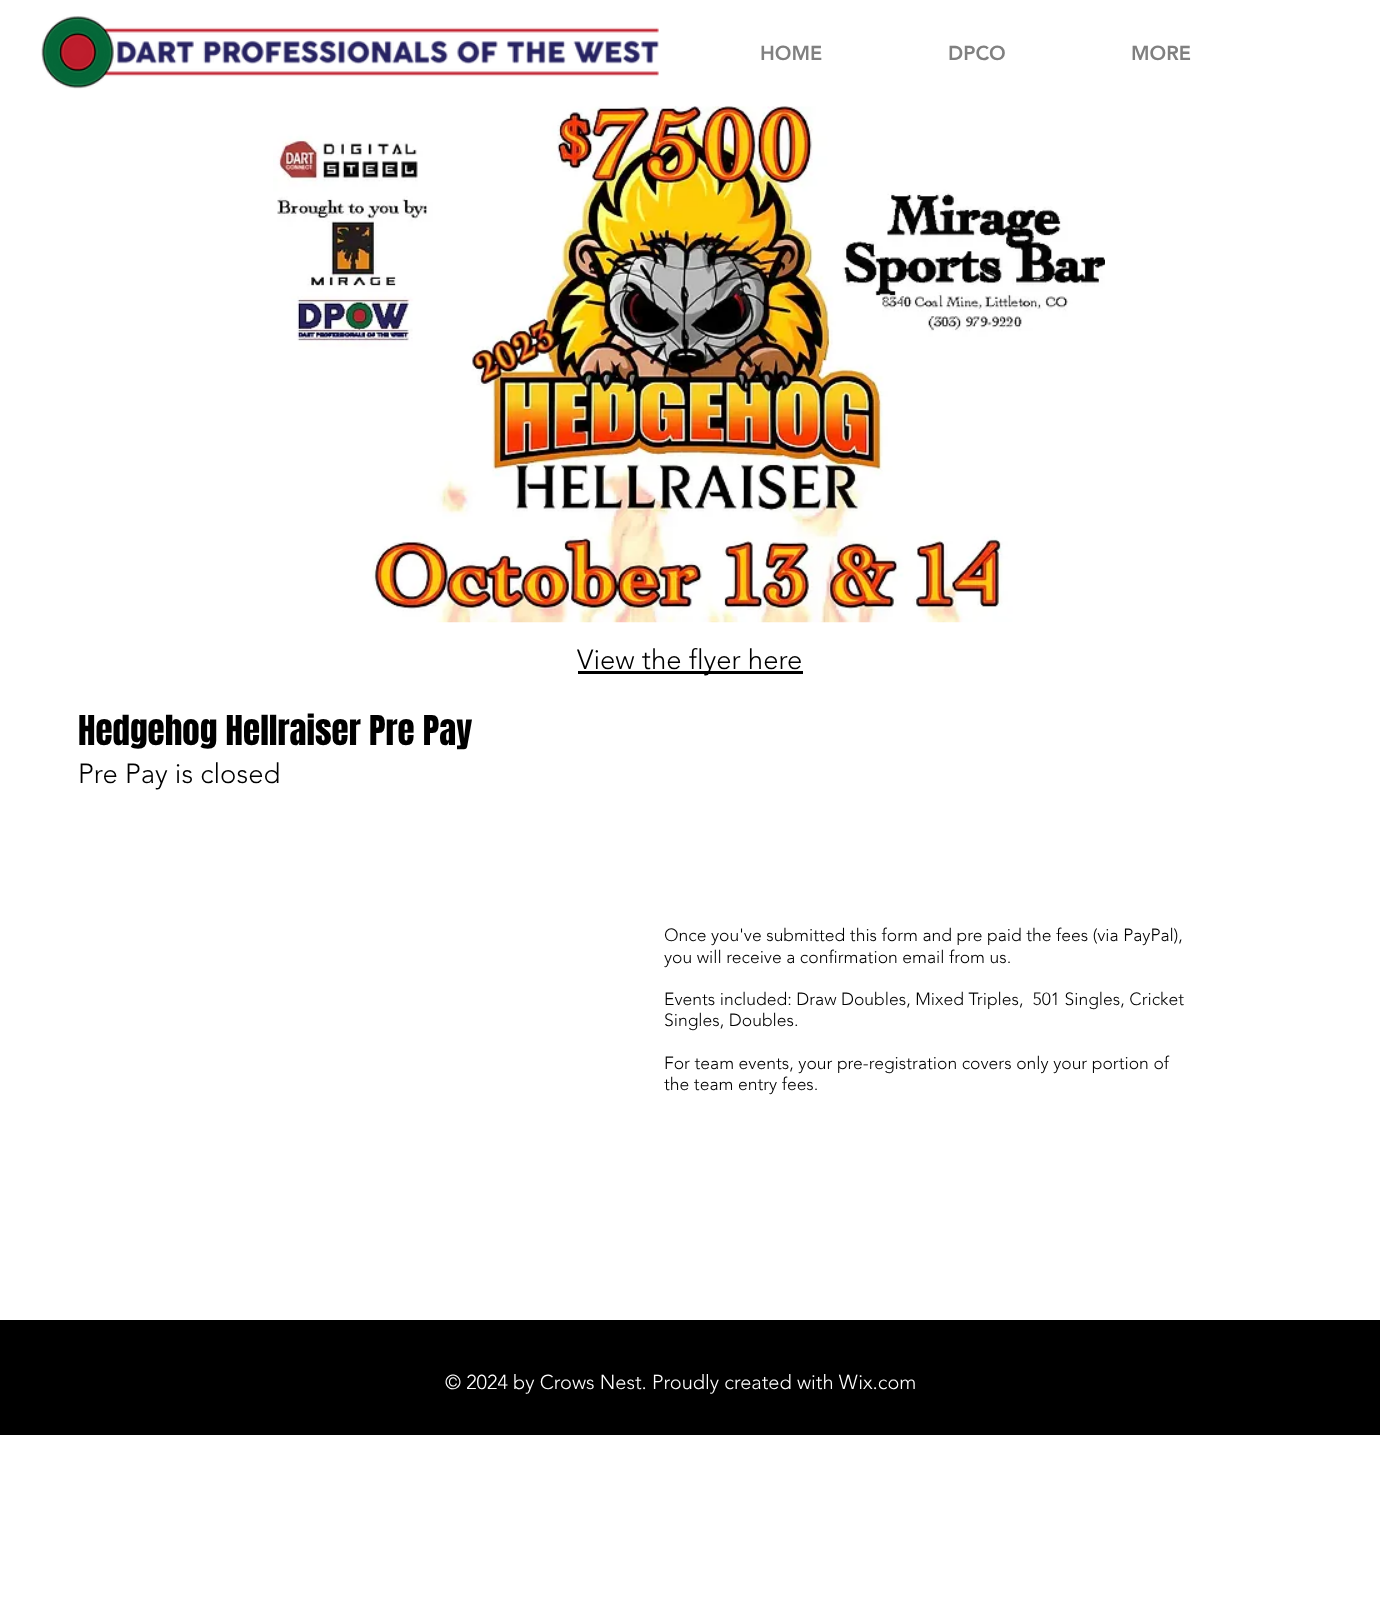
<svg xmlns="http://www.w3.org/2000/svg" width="1380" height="1616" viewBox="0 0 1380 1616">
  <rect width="100%" height="100%" fill="#fff"/>
  <image x="41" y="16" width="618" height="73" href="img/1.png"/>
  <image x="273" y="106" width="832" height="517" href="img/2.png"/>
  <path d="M578 671h225v3H578z" fill="#000"/>
  <path d="M0 1320h1380v115H0z" fill="#000"/>
  <g font-family="'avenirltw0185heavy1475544'" font-size="20" font-weight="900" fill="#808080">
    <text x="760" y="60">HOME</text>
    <text x="948" y="60">DPCO</text>
    <text x="1131" y="60">MORE</text>
  </g>
  <text x="577" y="669" font-family="'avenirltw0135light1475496'" font-size="27.5" font-weight="300" fill="#000">View the flyer here</text>
  <text x="78" y="745" font-family="Anton" font-size="35" fill="#000">Hedgehog Hellraiser Pre Pay</text>
  <text x="78" y="783" font-family="'avenirltw0135light1475496'" font-size="27.5" font-weight="300" fill="#000">Pre Pay is closed</text>
  <g font-family="'avenirltw0135light1475496'" font-size="17.5" font-weight="300" fill="#000">
    <text x="664" y="941">Once you've submitted this form and pre paid the fees (via PayPal),</text>
    <text x="664" y="963">you will receive a confirmation email from us.</text>
    <text x="664" y="1005" xml:space="preserve">Events included: Draw Doubles, Mixed Triples,  501 Singles, Cricket</text>
    <text x="664" y="1026">Singles, Doubles.</text>
    <text x="664" y="1069">For team events, your pre-registration covers only your portion of</text>
    <text x="664" y="1090">the team entry fees.</text>
  </g>
  <text x="445" y="1389" font-family="'avenirltw0135light1475496'" font-size="20" font-weight="300" fill="#fff">© 2024 by Crows Nest. Proudly created with Wix.com</text>
</svg>
